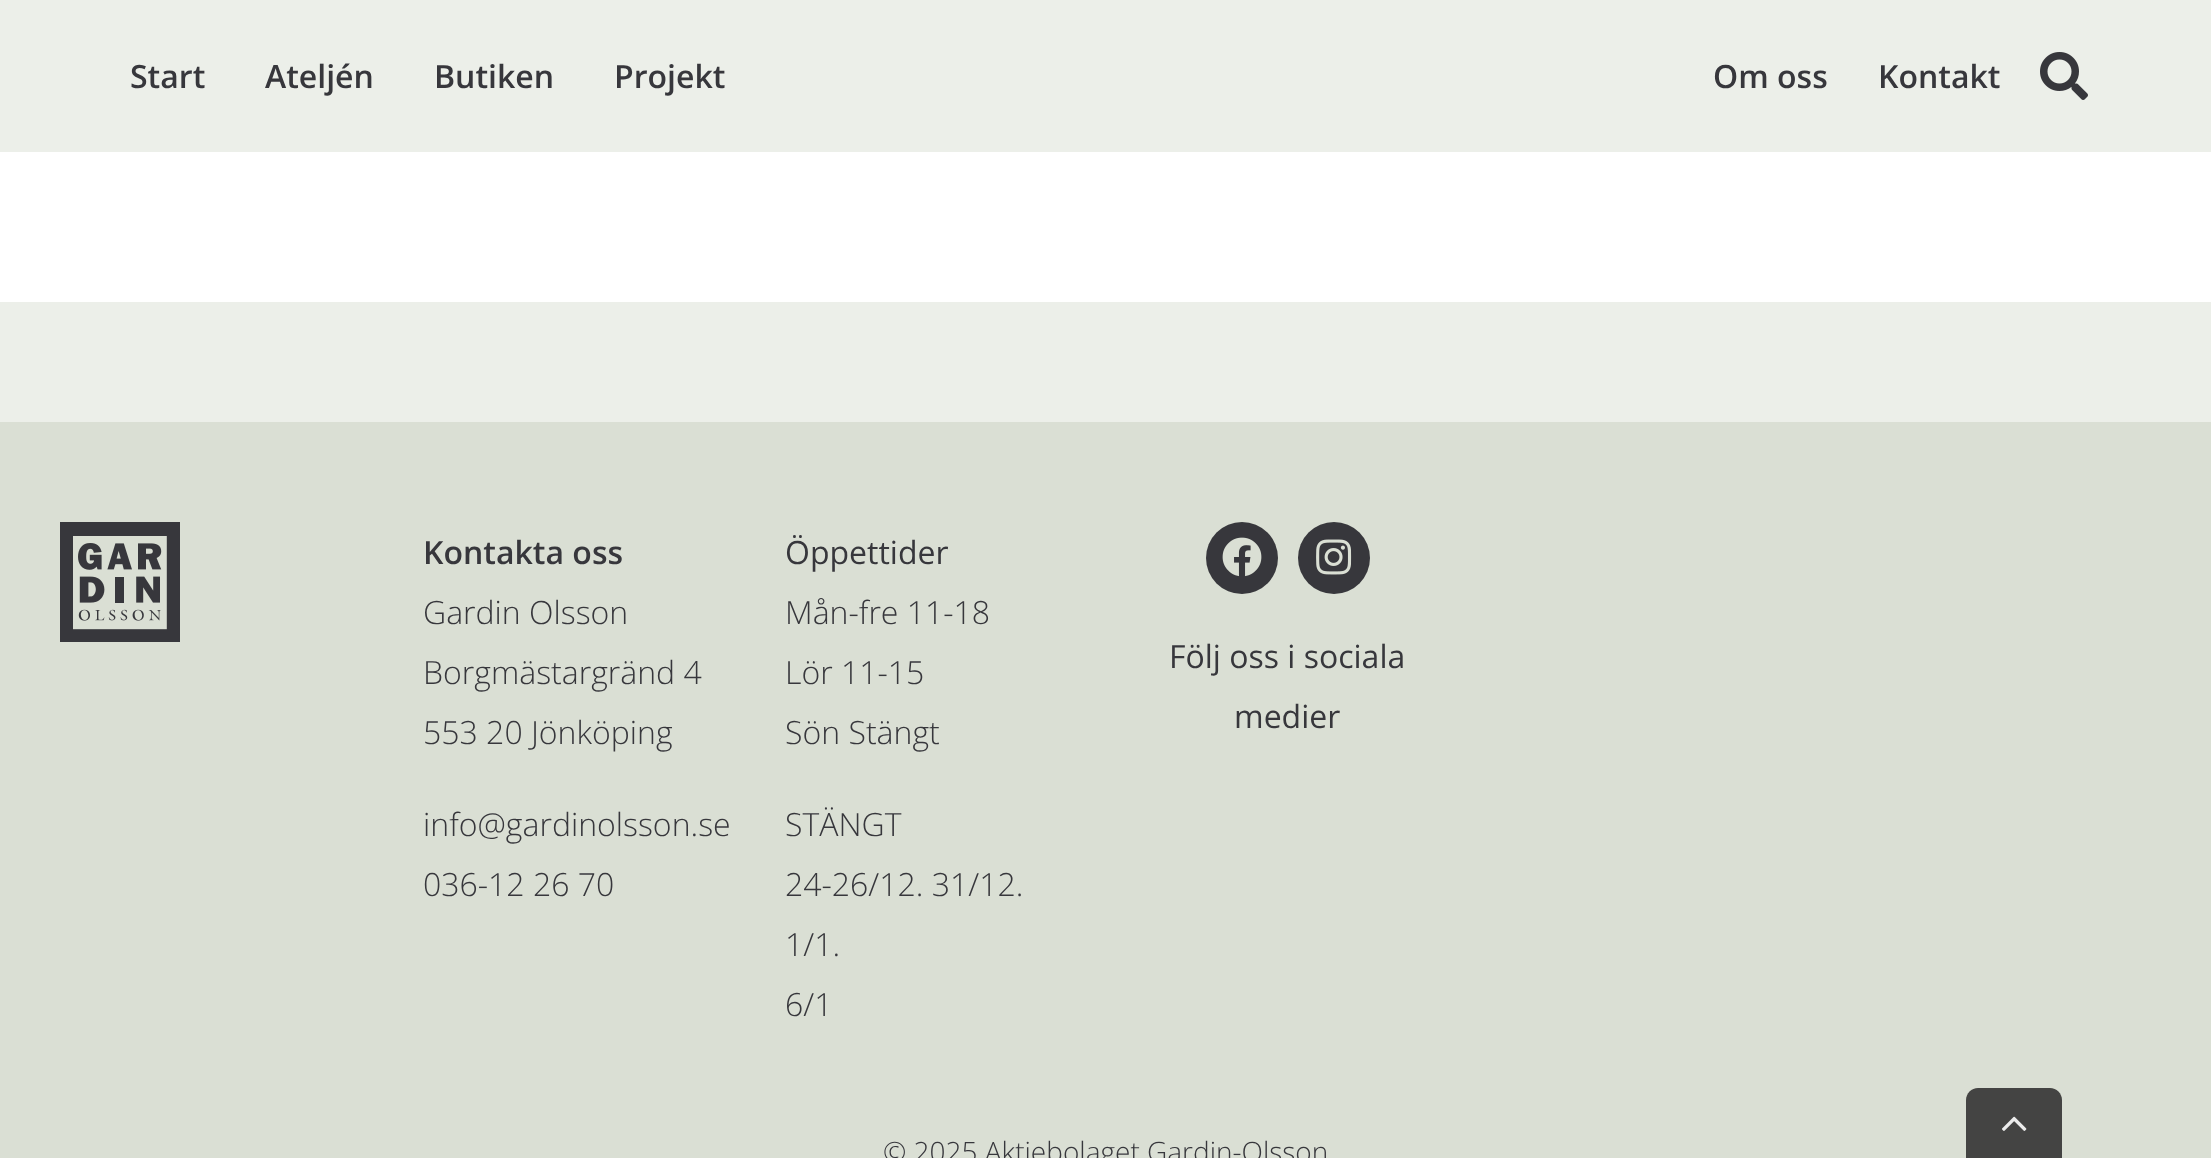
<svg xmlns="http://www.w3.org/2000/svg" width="2211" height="1158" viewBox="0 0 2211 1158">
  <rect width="100%" height="100%" fill="#dadfd4"/>
  <path d="M0 0h2211v152H0z" fill="#ecefe9"/>
  <image x="2040" y="52" width="48" height="48" href="img/1.png"/>
  <path d="M0 302h2211v120H0z" fill="#ecefe9"/>
  <path d="M0 152h2211v150H0z" fill="#fff"/>
  <image x="60" y="522" width="120" height="120" href="img/2.png"/>
  <circle cx="1242" cy="558" r="36" fill="#37373c"/>
  <image x="1222" y="537" width="40" height="40" href="img/3.png"/>
  <circle cx="1334" cy="558" r="36" fill="#37373c"/>
  <image x="1316" y="539" width="36" height="36" href="img/4.png"/>
  <path d="M1978 1088H2050C2056.5 1088 2062 1093.5 2062 1100V1158H1966V1100C1966 1093.5 1971.5 1088 1978 1088Z" fill="#444443"/>
  <image x="2002" y="1116" width="25" height="15" href="img/5.png"/>
  <g font-family="Open Sans" font-size="32" font-weight="600" fill="#37373c">
    <text x="130" y="88">Start</text>
    <text x="265" y="88">Ateljén</text>
    <text x="434" y="88">Butiken</text>
    <text x="614" y="88">Projekt</text>
    <text x="1713" y="88">Om oss</text>
    <text x="1878" y="88">Kontakt</text>
    <text x="423" y="564">Kontakta oss</text>
  </g>
  <g font-family="Open Sans" font-size="32" font-weight="300" fill="#37373c">
    <text x="423" y="624">Gardin Olsson</text>
    <text x="423" y="684">Borgmästargränd 4</text>
    <text x="423" y="744">553 20 Jönköping</text>
    <text x="423" y="836">info@gardinolsson.se</text>
    <text x="423" y="896">036-12 26 70</text>
  </g>
  <text x="785" y="564" font-family="Open Sans" font-size="32" fill="#37373c">Öppettider</text>
  <g font-family="Open Sans" font-size="32" font-weight="300" fill="#37373c">
    <text x="785" y="624">Mån-fre 11-18</text>
    <text x="785" y="684">Lör 11-15</text>
    <text x="785" y="744">Sön Stängt</text>
    <text x="785" y="836">STÄNGT</text>
    <text x="785" y="896">24-26/12. 31/12.</text>
    <text x="785" y="956">1/1.</text>
    <text x="785" y="1016">6/1</text>
  </g>
  <g font-family="Open Sans" font-size="32" fill="#37373c">
    <text x="1169" y="668">Följ oss i sociala</text>
    <text x="1234" y="728">medier</text>
  </g>
  <text x="883" y="1162" font-family="Open Sans" font-size="28" font-weight="300" fill="#37373c">© 2025 Aktiebolaget Gardin-Olsson</text>
</svg>
